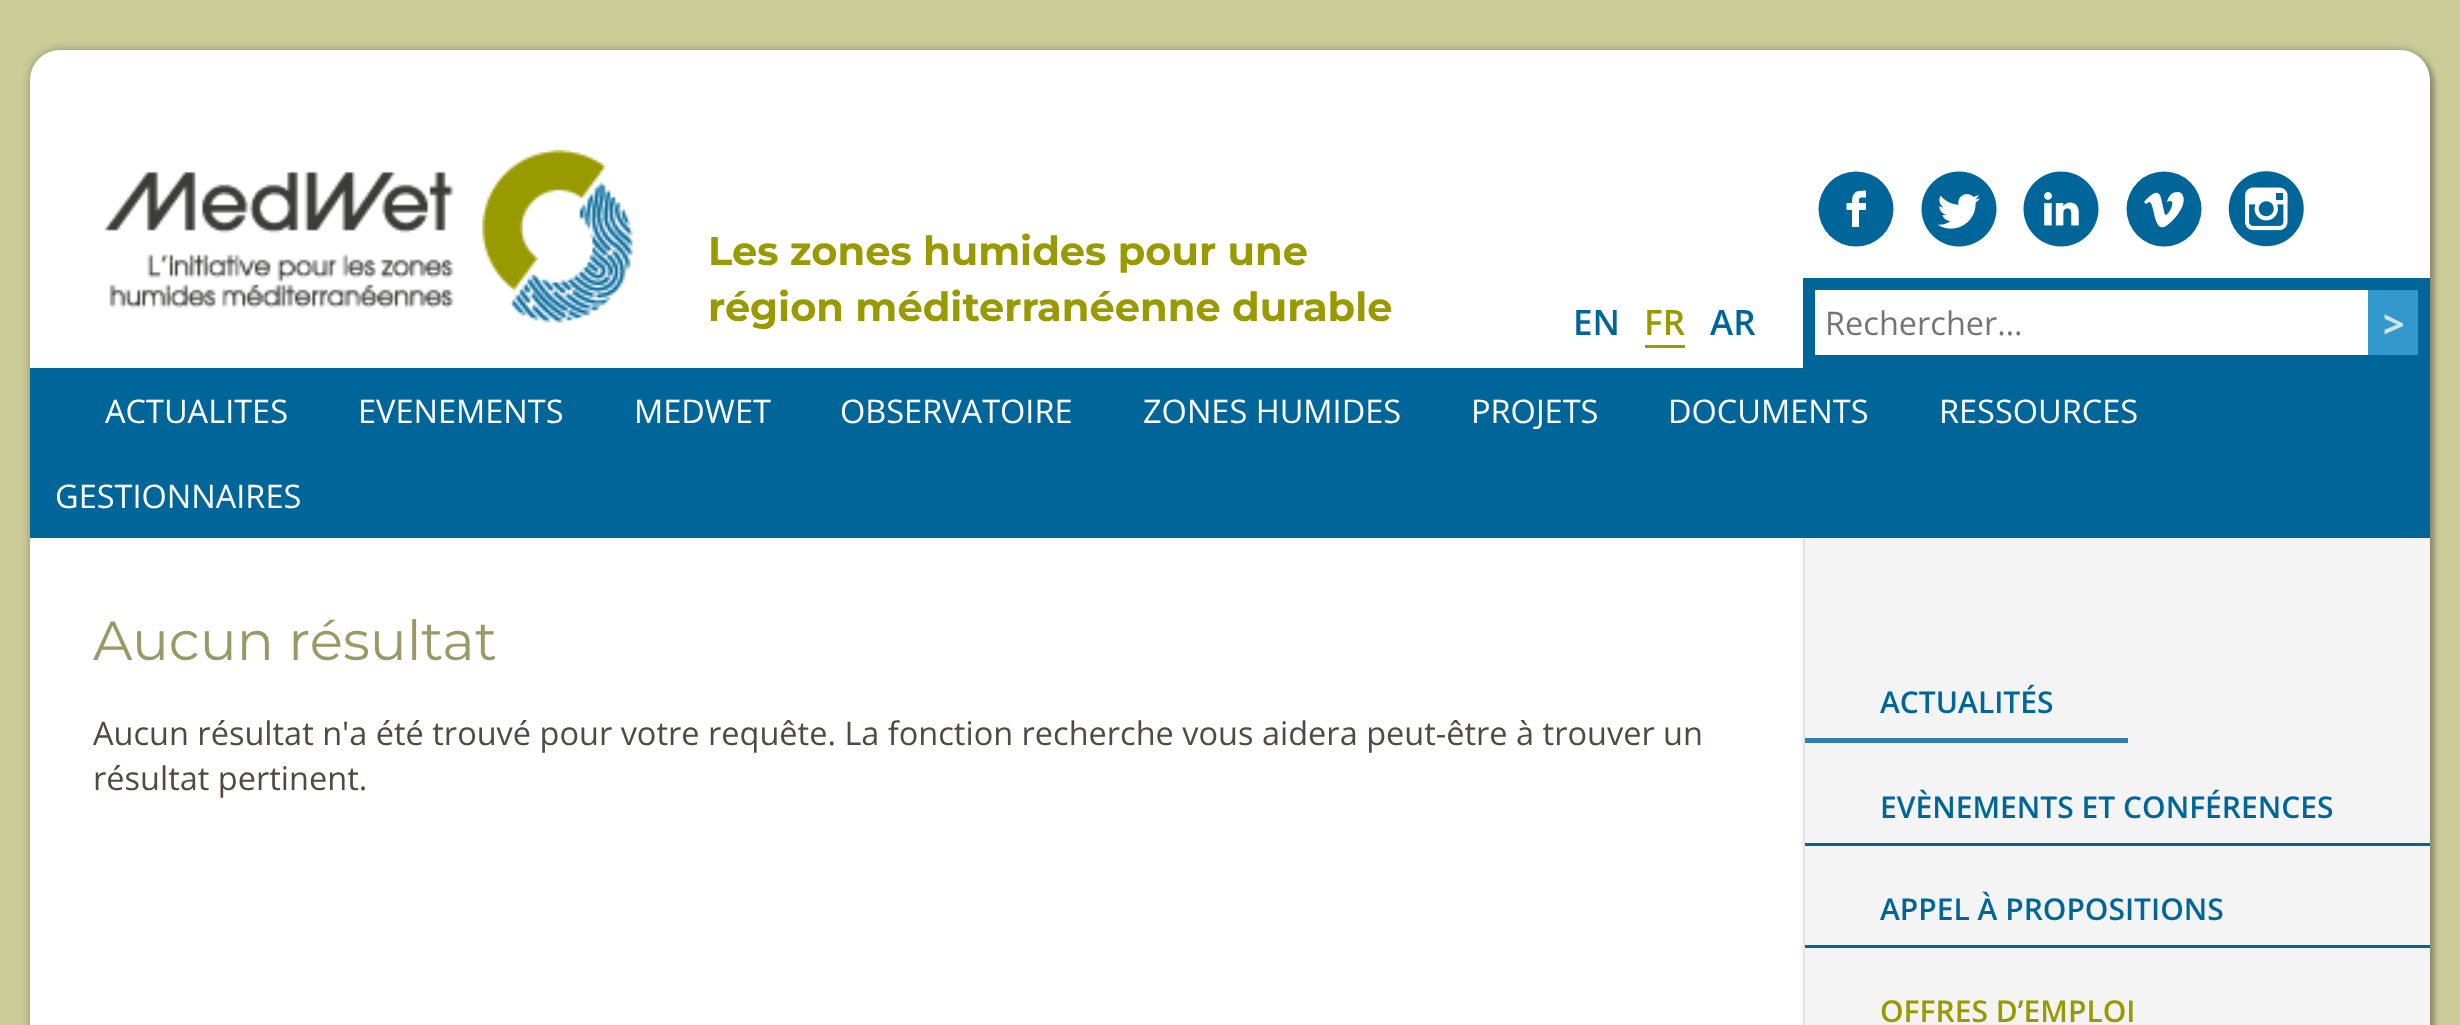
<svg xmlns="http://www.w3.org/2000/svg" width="2460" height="1025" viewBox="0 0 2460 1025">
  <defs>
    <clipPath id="clip1"><path d="M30 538h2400v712H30z"/></clipPath>
  </defs>
  <rect width="100%" height="100%" fill="#cc9"/>
  <rect x="35" y="55" width="2400" height="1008" rx="30" fill="#00000033" filter="blur(2.5px)"/>
  <rect x="30" y="50" width="2400" height="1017" rx="30" fill="#0000004d" filter="blur(4px)"/>
  <rect x="30" y="50" width="2400" height="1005" rx="30" fill="#fff"/>
  <image x="105" y="150" width="528" height="173" href="img/1.png"/>
  <circle cx="1856" cy="209" r="37.5" fill="#069"/>
  <path d="M1846.5 210H1852V227H1859V210H1866V203H1859C1859 196.5 1859 197.5 1866 197.5V190.5L1859 191C1852.5 192 1852 198 1852 203H1846.5Z" fill="#fff"/>
  <image x="1921" y="171" width="76" height="76" href="img/2.png"/>
  <image x="2023" y="171" width="76" height="76" href="img/3.png"/>
  <circle cx="2164" cy="209" r="37.5" fill="#069"/>
  <path d="M2178 192C2172 192 2169 195 2167 202C2178 197 2169 215 2166 215C2165 215 2164 212 2164 211L2161 198C2158 186 2148 198 2144 202L2146 204L2149 202C2155 202 2153 234 2166 226C2174 221 2187 205 2183 196C2182 193 2180 192 2178 192Z" fill="#fff"/>
  <image x="2228" y="171" width="76" height="76" href="img/4.png"/>
  <path d="M1645 345h40v3H1645z" fill="#990"/>
  <path d="M1803 278h627v90H1803z" fill="#069"/>
  <path d="M1815 290h553v65H1815z" fill="#fff"/>
  <path d="M2368 290h50v65H2368z" fill="#39c"/>
  <path d="M30 368h2400v170H30z" fill="#069"/>
  <g clip-path="url(#clip1)">
    <path d="M1805 535h635v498H1805z" fill="#0000004d" filter="blur(2.5px)"/>
  </g>
  <path d="M1805 538h625v487H1805z" fill="#f4f4f4"/>
  <path d="M1805 738h323v5H1805z" fill="#337daf"/>
  <path d="M1805 843h625v3H1805z" fill="#069"/>
  <path d="M1805 945h625v3H1805z" fill="#069"/>
  <g font-family="Montserrat" font-size="40" font-weight="bold" fill="#990">
    <text x="708" y="265">Les zones humides pour une</text>
    <text x="708" y="321">région méditerranéenne durable</text>
  </g>
  <text x="1573" y="335" font-family="Open Sans" font-size="35" font-weight="600" fill="#069">EN</text>
  <text x="1644" y="335" font-family="Open Sans" font-size="35" font-weight="600" fill="#990">FR</text>
  <text x="1710" y="335" font-family="Open Sans" font-size="35" font-weight="600" fill="#069">AR</text>
  <text x="1825" y="335" font-family="Open Sans" font-size="32.5" fill="#757575">Rechercher…</text>
  <text x="2383" y="338" font-family="Open Sans" font-size="38" font-weight="bold" fill="#d2e2e2">&gt;</text>
  <g font-family="Open Sans" font-size="32.5" fill="#fff">
    <text x="105" y="423">ACTUALITES</text>
    <text x="358" y="423">EVENEMENTS</text>
    <text x="634" y="423">MEDWET</text>
    <text x="840" y="423">OBSERVATOIRE</text>
    <text x="1143" y="423">ZONES HUMIDES</text>
    <text x="1471" y="423">PROJETS</text>
    <text x="1668" y="423">DOCUMENTS</text>
    <text x="1939" y="423">RESSOURCES</text>
    <text x="55" y="508">GESTIONNAIRES</text>
  </g>
  <text x="93" y="660" font-family="Montserrat" font-size="55" fill="#996">Aucun résultat</text>
  <g font-family="Open Sans" font-size="32.5" fill="#504945">
    <text x="93" y="745">Aucun résultat n'a été trouvé pour votre requête. La fonction recherche vous aidera peut-être à trouver un</text>
    <text x="93" y="790">résultat pertinent.</text>
  </g>
  <g font-family="Open Sans" font-size="30" font-weight="600" fill="#069">
    <text x="1880" y="713">ACTUALITÉS</text>
    <text x="1880" y="818">EVÈNEMENTS ET CONFÉRENCES</text>
    <text x="1880" y="920">APPEL À PROPOSITIONS</text>
  </g>
  <text x="1880" y="1022" font-family="Open Sans" font-size="30" font-weight="600" fill="#990">OFFRES D’EMPLOI</text>
</svg>
